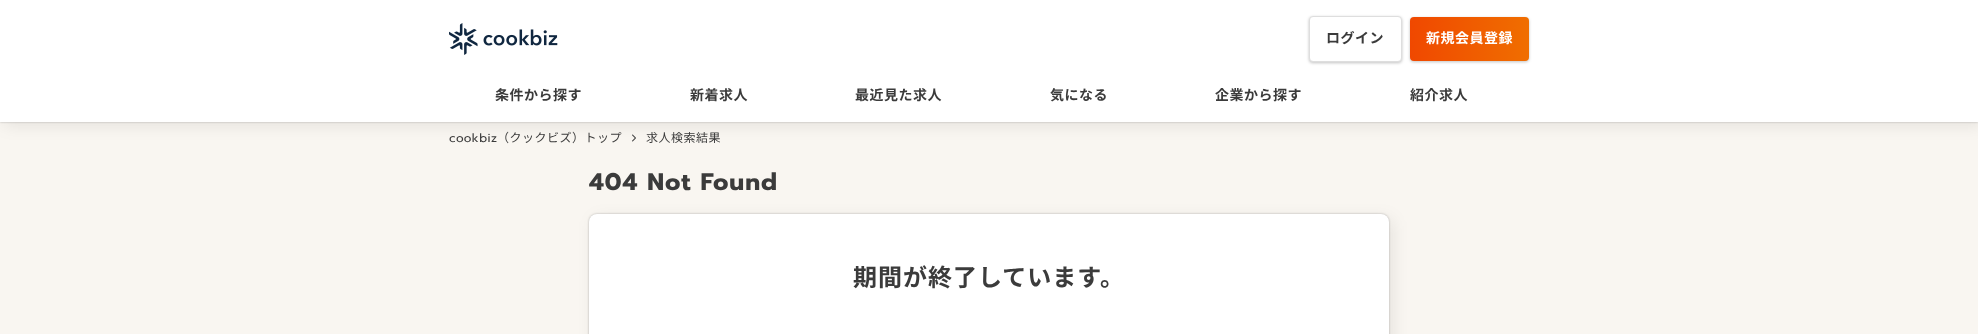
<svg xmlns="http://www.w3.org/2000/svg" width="1978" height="334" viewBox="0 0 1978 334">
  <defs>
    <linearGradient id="g1" gradientUnits="userSpaceOnUse" x1="1410" y1="39" x2="1529" y2="39"><stop offset="0" stop-color="#f04800"/><stop offset="1" stop-color="#f06e00"/></linearGradient>
  </defs>
  <rect width="100%" height="100%" fill="#f9f6f1"/>
  <path d="M0 0h1978v122H0z" fill="#00000040" filter="blur(1px)"/>
  <path d="M4 4h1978v122H4z" fill="#00000014" filter="blur(8px)"/>
  <path d="M0 0h1978v122H0z" fill="#fff"/>
  <image x="449" y="23" width="109" height="32" href="img/1.png"/>
  <rect x="1309" y="17" width="93" height="46" rx="4" fill="#0000003d" filter="blur(1.5px)"/>
  <rect x="1309.5" y="16.5" width="92" height="45" rx="3.5" fill="#fff" stroke="#dedede"/>
  <rect x="1410" y="18" width="119" height="44" rx="4" fill="#0000003d" filter="blur(1.5px)"/>
  <rect x="1410" y="17" width="119" height="44" rx="4" fill="url(#g1)"/>
  <image x="632" y="134" width="4" height="8" href="img/2.png"/>
  <rect x="589" y="214" width="800" height="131" rx="8" fill="#00000040" filter="blur(1px)"/>
  <rect x="593" y="218" width="800" height="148" rx="8" fill="#00000014" filter="blur(8px)"/>
  <rect x="589" y="214" width="800" height="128" rx="8" fill="#fff"/>
  <text x="1326" y="43" font-family="Noto Sans JP" font-size="14" font-weight="bold" letter-spacing="0.5" fill="#3b3b3b">ログイン</text>
  <text x="1426" y="43" font-family="Noto Sans JP" font-size="14" font-weight="bold" letter-spacing="0.5" fill="#fff">新規会員登録</text>
  <g font-family="Noto Sans JP" font-size="14" font-weight="bold" letter-spacing="0.5" fill="#3b3b3b">
    <text x="495" y="100">条件から探す</text>
    <text x="690" y="100">新着求人</text>
    <text x="855" y="100">最近見た求人</text>
    <text x="1050" y="100">気になる</text>
    <text x="1215" y="100">企業から探す</text>
    <text x="1410" y="100">紹介求人</text>
  </g>
  <text x="449" y="142" font-family="Prompt" font-size="12" letter-spacing="0.5" fill="#3b3b3b">cookbiz</text>
  <g font-family="Noto Sans JP" font-size="12" letter-spacing="0.5" fill="#3b3b3b">
    <text x="497" y="142">（クックビズ）トップ</text>
    <text x="646" y="142">求人検索結果</text>
  </g>
  <text x="589" y="190" font-family="Prompt" font-size="24" font-weight="bold" letter-spacing="1" fill="#3b3b3b">404 Not Found</text>
  <text x="853" y="286" font-family="Noto Sans JP" font-size="24" font-weight="bold" letter-spacing="1" fill="#3b3b3b">期間が終了しています。</text>
</svg>
